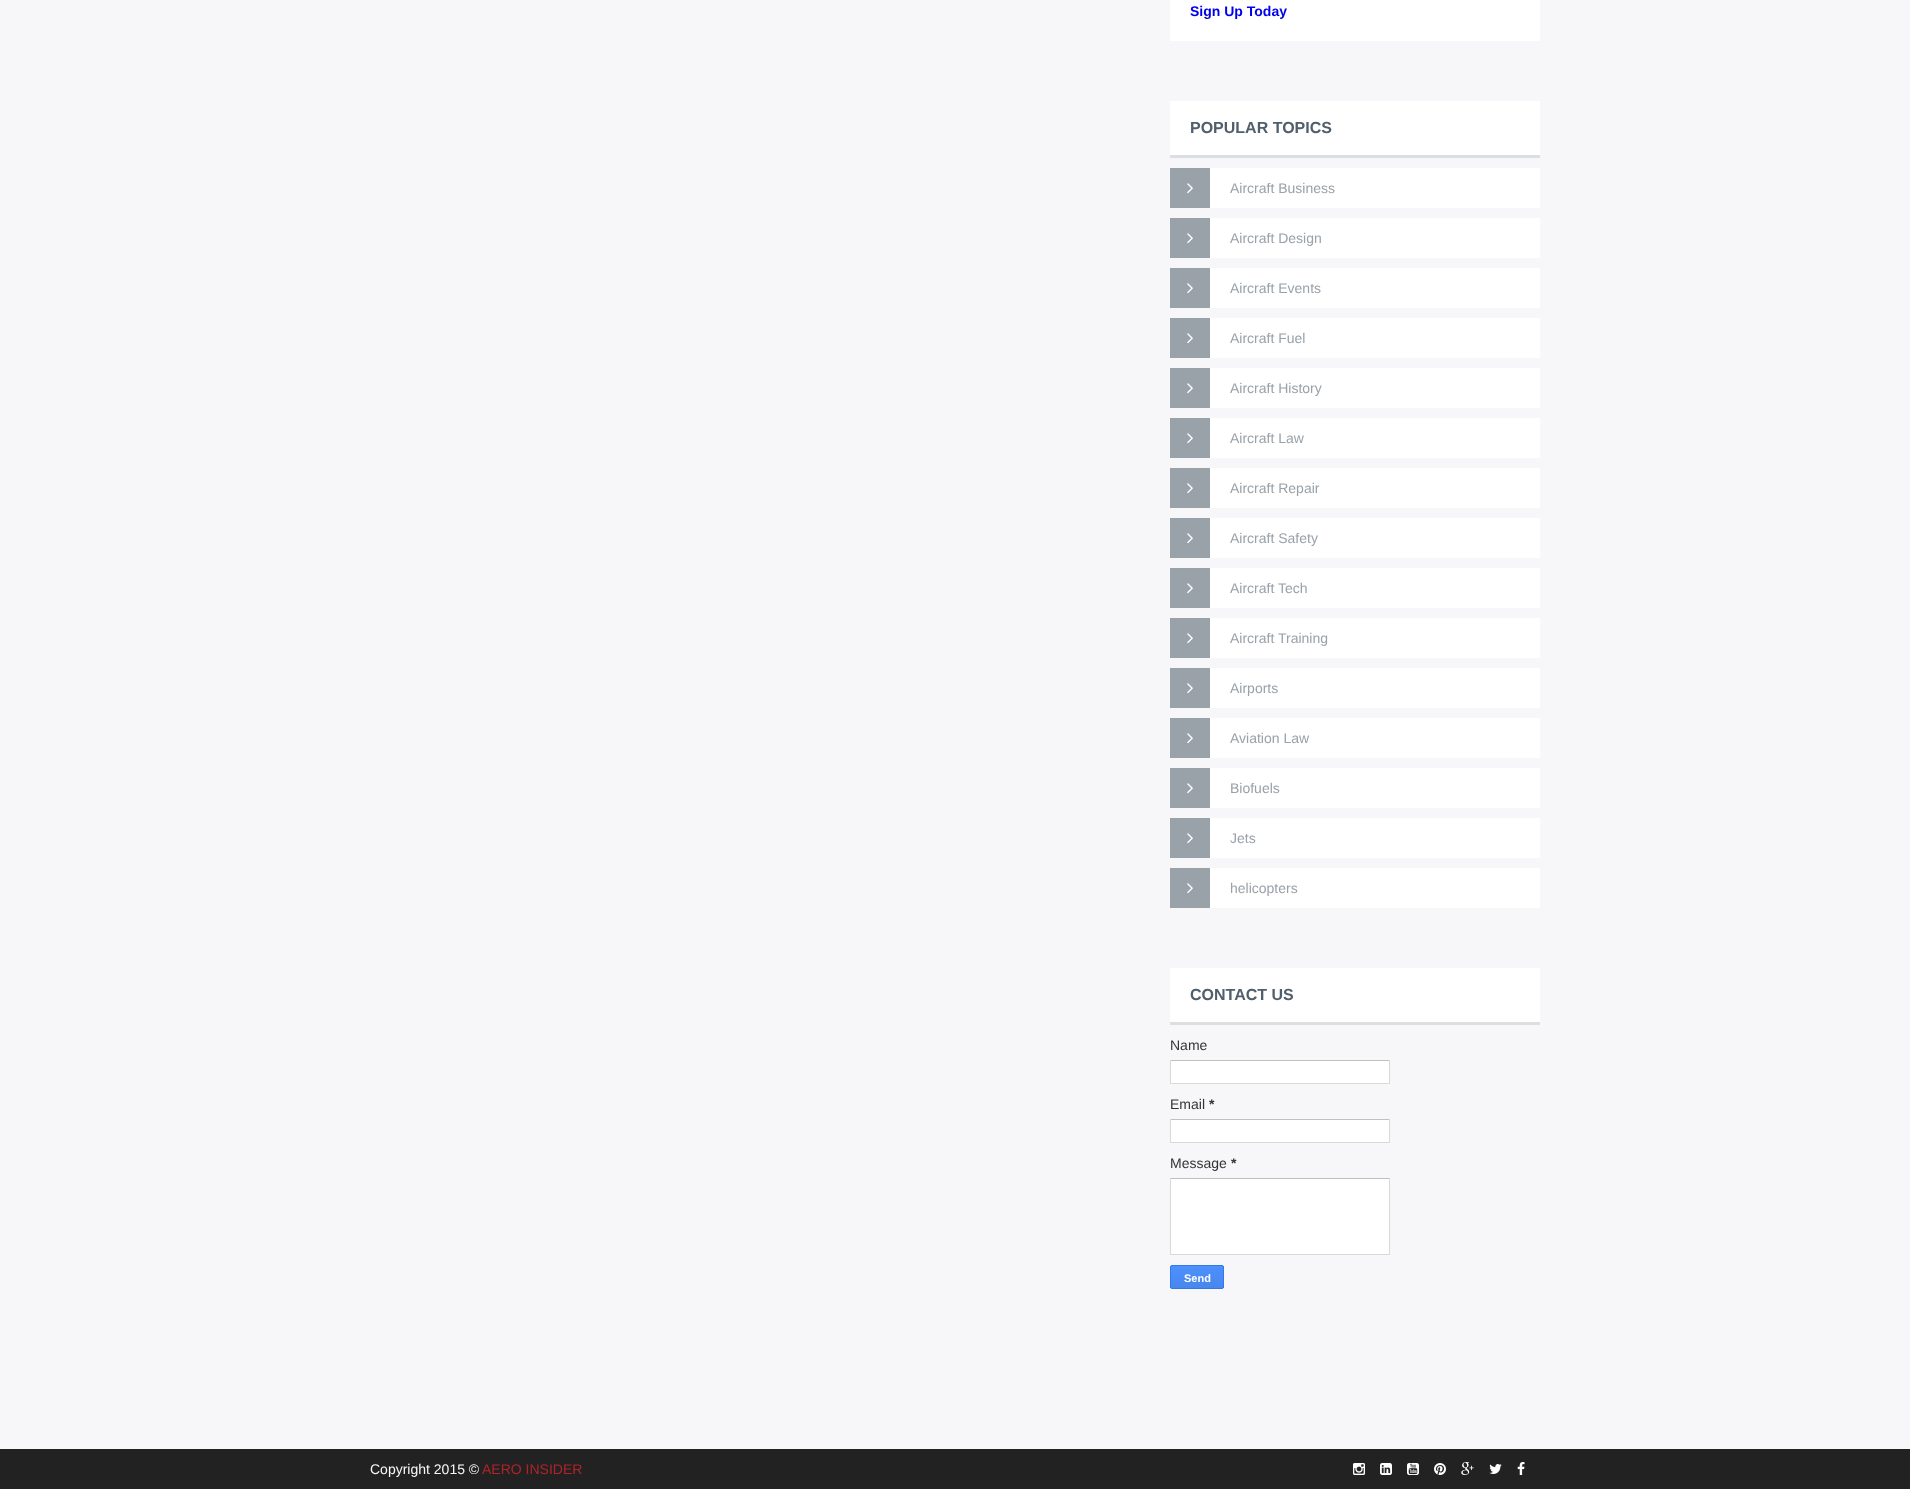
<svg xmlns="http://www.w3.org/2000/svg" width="1910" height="1489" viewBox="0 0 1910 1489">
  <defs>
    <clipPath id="clip1"><rect x="1170" y="1265" width="54" height="24" rx="2"/></clipPath>
    <linearGradient id="g1" gradientUnits="userSpaceOnUse" x1="1197" y1="1266" x2="1197" y2="1288"><stop offset="0" stop-color="#4d90fe"/><stop offset="1" stop-color="#4787ed"/></linearGradient>
  </defs>
  <rect width="100%" height="100%" fill="#f7f7fa"/>
  <path d="M1170 0h370v41H1170z" fill="#fff"/>
  <path d="M1170 101h370v54H1170z" fill="#fff"/>
  <path d="M1170 155h370v3H1170z" fill="#dcdfe2"/>
  <path d="M1210 168h330v40H1210z" fill="#fff"/>
  <path d="M1170 168h40v40H1170z" fill="#99a1a9"/>
  <image x="1187" y="183" width="6" height="11" href="img/1.png"/>
  <path d="M1210 218h330v40H1210z" fill="#fff"/>
  <path d="M1170 218h40v40H1170z" fill="#99a1a9"/>
  <image x="1187" y="233" width="6" height="11" href="img/1.png"/>
  <path d="M1210 268h330v40H1210z" fill="#fff"/>
  <path d="M1170 268h40v40H1170z" fill="#99a1a9"/>
  <image x="1187" y="283" width="6" height="11" href="img/1.png"/>
  <path d="M1210 318h330v40H1210z" fill="#fff"/>
  <path d="M1170 318h40v40H1170z" fill="#99a1a9"/>
  <image x="1187" y="333" width="6" height="11" href="img/1.png"/>
  <path d="M1210 368h330v40H1210z" fill="#fff"/>
  <path d="M1170 368h40v40H1170z" fill="#99a1a9"/>
  <image x="1187" y="383" width="6" height="11" href="img/1.png"/>
  <path d="M1210 418h330v40H1210z" fill="#fff"/>
  <path d="M1170 418h40v40H1170z" fill="#99a1a9"/>
  <image x="1187" y="433" width="6" height="11" href="img/1.png"/>
  <path d="M1210 468h330v40H1210z" fill="#fff"/>
  <path d="M1170 468h40v40H1170z" fill="#99a1a9"/>
  <image x="1187" y="483" width="6" height="11" href="img/1.png"/>
  <path d="M1210 518h330v40H1210z" fill="#fff"/>
  <path d="M1170 518h40v40H1170z" fill="#99a1a9"/>
  <image x="1187" y="533" width="6" height="11" href="img/1.png"/>
  <path d="M1210 568h330v40H1210z" fill="#fff"/>
  <path d="M1170 568h40v40H1170z" fill="#99a1a9"/>
  <image x="1187" y="583" width="6" height="11" href="img/1.png"/>
  <path d="M1210 618h330v40H1210z" fill="#fff"/>
  <path d="M1170 618h40v40H1170z" fill="#99a1a9"/>
  <image x="1187" y="633" width="6" height="11" href="img/1.png"/>
  <path d="M1210 668h330v40H1210z" fill="#fff"/>
  <path d="M1170 668h40v40H1170z" fill="#99a1a9"/>
  <image x="1187" y="683" width="6" height="11" href="img/1.png"/>
  <path d="M1210 718h330v40H1210z" fill="#fff"/>
  <path d="M1170 718h40v40H1170z" fill="#99a1a9"/>
  <image x="1187" y="733" width="6" height="11" href="img/1.png"/>
  <path d="M1210 768h330v40H1210z" fill="#fff"/>
  <path d="M1170 768h40v40H1170z" fill="#99a1a9"/>
  <image x="1187" y="783" width="6" height="11" href="img/1.png"/>
  <path d="M1210 818h330v40H1210z" fill="#fff"/>
  <path d="M1170 818h40v40H1170z" fill="#99a1a9"/>
  <image x="1187" y="833" width="6" height="11" href="img/1.png"/>
  <path d="M1210 868h330v40H1210z" fill="#fff"/>
  <path d="M1170 868h40v40H1170z" fill="#99a1a9"/>
  <image x="1187" y="883" width="6" height="11" href="img/1.png"/>
  <path d="M1170 968h370v54H1170z" fill="#fff"/>
  <path d="M1170 1022h370v3H1170z" fill="#dcdfe2"/>
  <path d="M1171 1061h218v22H1171z" fill="#fff"/>
  <path d="M1170 1060h220v1H1170z" fill="#c0c0c0"/>
  <path d="M1389 1060h1v24H1389z" fill="#d9d9d9"/>
  <path d="M1170 1083h220v1H1170z" fill="#d9d9d9"/>
  <path d="M1170 1060h1v24H1170z" fill="#d9d9d9"/>
  <path d="M1171 1120h218v22H1171z" fill="#fff"/>
  <path d="M1170 1119h220v1H1170z" fill="#c0c0c0"/>
  <path d="M1389 1119h1v24H1389z" fill="#d9d9d9"/>
  <path d="M1170 1142h220v1H1170z" fill="#d9d9d9"/>
  <path d="M1170 1119h1v24H1170z" fill="#d9d9d9"/>
  <path d="M1171 1179h218v75H1171z" fill="#fff"/>
  <path d="M1170 1178h220v1H1170z" fill="#c0c0c0"/>
  <path d="M1389 1178h1v77H1389z" fill="#d9d9d9"/>
  <path d="M1170 1254h220v1H1170z" fill="#d9d9d9"/>
  <path d="M1170 1178h1v77H1170z" fill="#d9d9d9"/>
  <g clip-path="url(#clip1)">
    <path d="M1170 1266h54v22H1170z" fill="url(#g1)"/>
  </g>
  <rect x="1170.5" y="1265.5" width="53" height="23" rx="1.5" fill="none" stroke="#3079ed"/>
  <path d="M0 1449h1910v40H0z" fill="#222"/>
  <image x="1353" y="1463" width="12" height="12" href="img/2.png"/>
  <image x="1380" y="1463" width="12" height="12" href="img/3.png"/>
  <image x="1407" y="1463" width="12" height="12" href="img/4.png"/>
  <image x="1434" y="1463" width="12" height="12" href="img/5.png"/>
  <image x="1461" y="1462" width="13" height="13" href="img/6.png"/>
  <image x="1489" y="1464" width="13" height="10" href="img/7.png"/>
  <image x="1517" y="1462" width="8" height="13" href="img/8.png"/>
  <text x="1190" y="16" font-family="Liberation Sans" font-size="14" font-weight="bold" fill="#00e">Sign Up Today</text>
  <text x="1190" y="133" font-family="Liberation Sans" font-size="16" font-weight="bold" fill="#515e6c">POPULAR TOPICS</text>
  <g font-family="Liberation Sans" font-size="14" fill="#99a1a9">
    <text x="1230" y="193">Aircraft Business</text>
    <text x="1230" y="243">Aircraft Design</text>
    <text x="1230" y="293">Aircraft Events</text>
    <text x="1230" y="343">Aircraft Fuel</text>
    <text x="1230" y="393">Aircraft History</text>
    <text x="1230" y="443">Aircraft Law</text>
    <text x="1230" y="493">Aircraft Repair</text>
    <text x="1230" y="543">Aircraft Safety</text>
    <text x="1230" y="593">Aircraft Tech</text>
    <text x="1230" y="643">Aircraft Training</text>
    <text x="1230" y="693">Airports</text>
    <text x="1230" y="743">Aviation Law</text>
    <text x="1230" y="793">Biofuels</text>
    <text x="1230" y="843">Jets</text>
    <text x="1230" y="893">helicopters</text>
  </g>
  <text x="1190" y="1000" font-family="Liberation Sans" font-size="16" font-weight="bold" fill="#515e6c">CONTACT US</text>
  <g font-family="Liberation Sans" font-size="14" fill="#333">
    <text x="1170" y="1050">Name</text>
    <text x="1170" y="1109">Email</text>
  </g>
  <text x="1209" y="1109" font-family="Liberation Sans" font-size="14" font-weight="bold" fill="#333">*</text>
  <text x="1170" y="1168" font-family="Liberation Sans" font-size="14" fill="#333">Message</text>
  <text x="1231" y="1168" font-family="Liberation Sans" font-size="14" font-weight="bold" fill="#333">*</text>
  <text x="1184" y="1282" font-family="Liberation Sans" font-size="11" font-weight="bold" fill="#fff">Send</text>
  <text x="370" y="1474" font-family="Liberation Sans" font-size="14" fill="#f7f7fa">Copyright 2015 ©</text>
  <text x="482" y="1474" font-family="Liberation Sans" font-size="14" fill="#b1242a">AERO INSIDER</text>
</svg>
